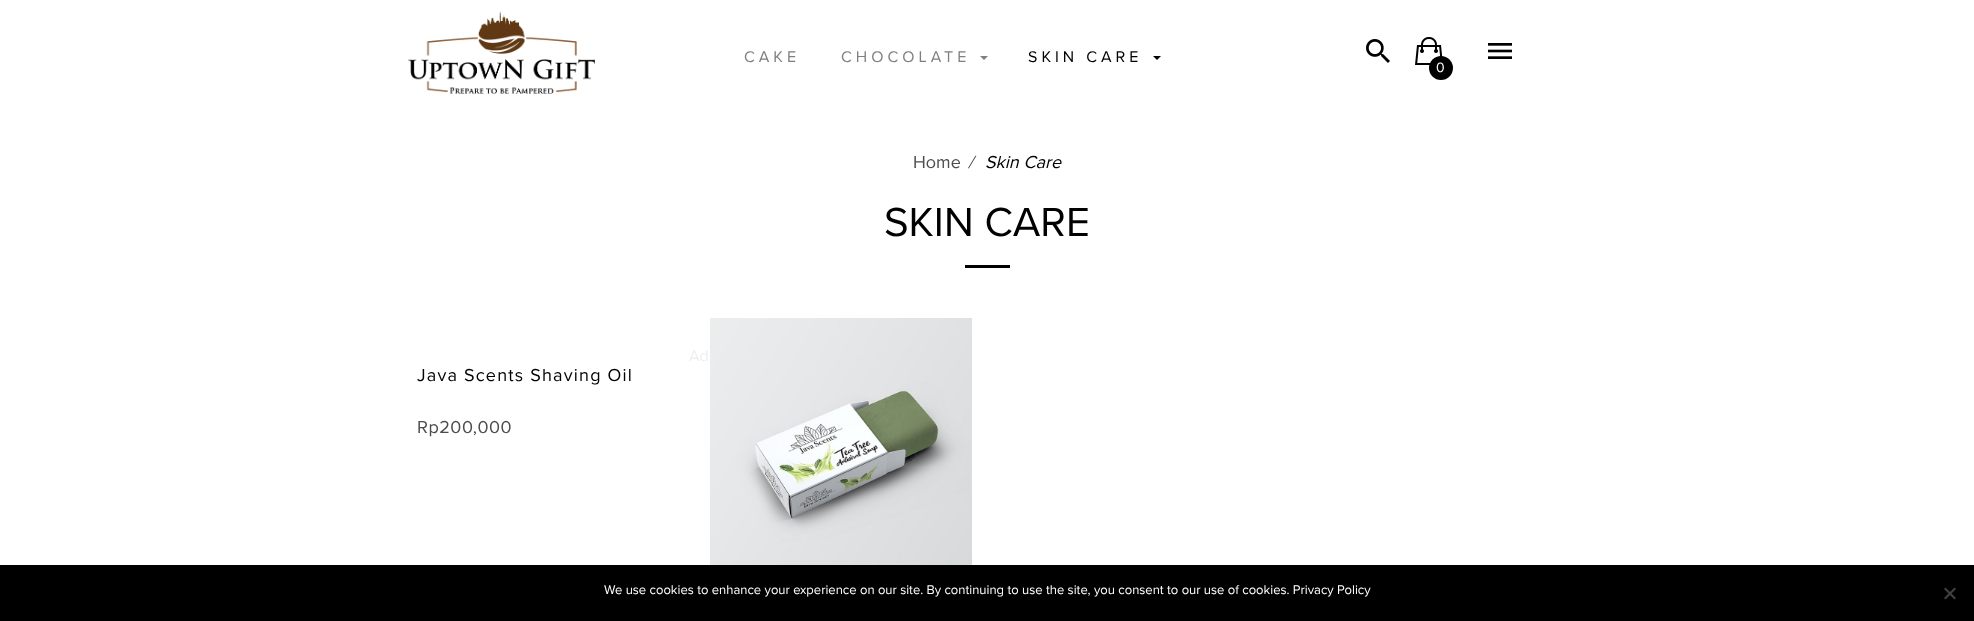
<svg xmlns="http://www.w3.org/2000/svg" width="1974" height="621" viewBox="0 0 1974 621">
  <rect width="100%" height="100%" fill="#fff"/>
  <image x="408" y="11" width="187" height="83" href="img/1.png"/>
  <path d="M980 56H988L984 60Z" fill="#7f7f7f"/>
  <path d="M1153 56H1161L1157 60Z" fill="#000"/>
  <image x="1366" y="39" width="24" height="24" href="img/2.png"/>
  <image x="1488" y="43" width="24" height="16" href="img/3.png"/>
  <image x="1415" y="37" width="28" height="28" href="img/4.png"/>
  <circle cx="1441" cy="68" r="12" fill="#000"/>
  <path d="M965 265h45v3H965z" fill="#000"/>
  <image x="710" y="318" width="262" height="247" href="img/5.png"/>
  <path d="M0 565h1974v56H0z" fill="#000"/>
  <path d="M1954.5 587.5L1956 589L1945.5 599.5L1944 598Z" fill="#404040"/>
  <path d="M1944 589L1945.5 587.5L1956 598L1954.5 599.5Z" fill="#404040"/>
  <g font-family="Proxima Nova" font-size="16" letter-spacing="4" fill="#7f7f7f">
    <text x="744" y="62">CAKE</text>
    <text x="841" y="62">CHOCOLATE</text>
  </g>
  <text x="1028" y="62" font-family="Proxima Nova" font-size="16" letter-spacing="4" fill="#000">SKIN CARE</text>
  <text x="1436" y="72" font-family="Proxima Nova" font-size="14" fill="#fff">0</text>
  <text x="913" y="168" font-family="Proxima Nova" font-size="18" fill="#4c4c4c">Home</text>
  <text x="968" y="168" font-family="Proxima Nova" font-size="18" font-style="italic" fill="#4c4c4c">/</text>
  <text x="985" y="168" font-family="Proxima Nova" font-size="18" font-style="italic" fill="#000">Skin Care</text>
  <text x="884" y="236" font-family="Proxima Nova" font-size="42" fill="#000">SKIN CARE</text>
  <text x="689" y="361" font-family="Proxima Nova" font-size="16" fill="#eeeff1">Ad</text>
  <text x="417" y="381" font-family="Proxima Nova" font-size="18" letter-spacing="1.2" fill="#000">Java Scents Shaving Oil</text>
  <text x="417" y="433" font-family="Proxima Nova" font-size="18" letter-spacing="0.5" fill="#4c4c4c">Rp200,000</text>
  <text x="604" y="594" font-family="Proxima Nova" font-size="13" fill="#fff">We use cookies to enhance your experience on our site. By continuing to use the site, you consent to our use of cookies. Privacy Policy</text>
</svg>
